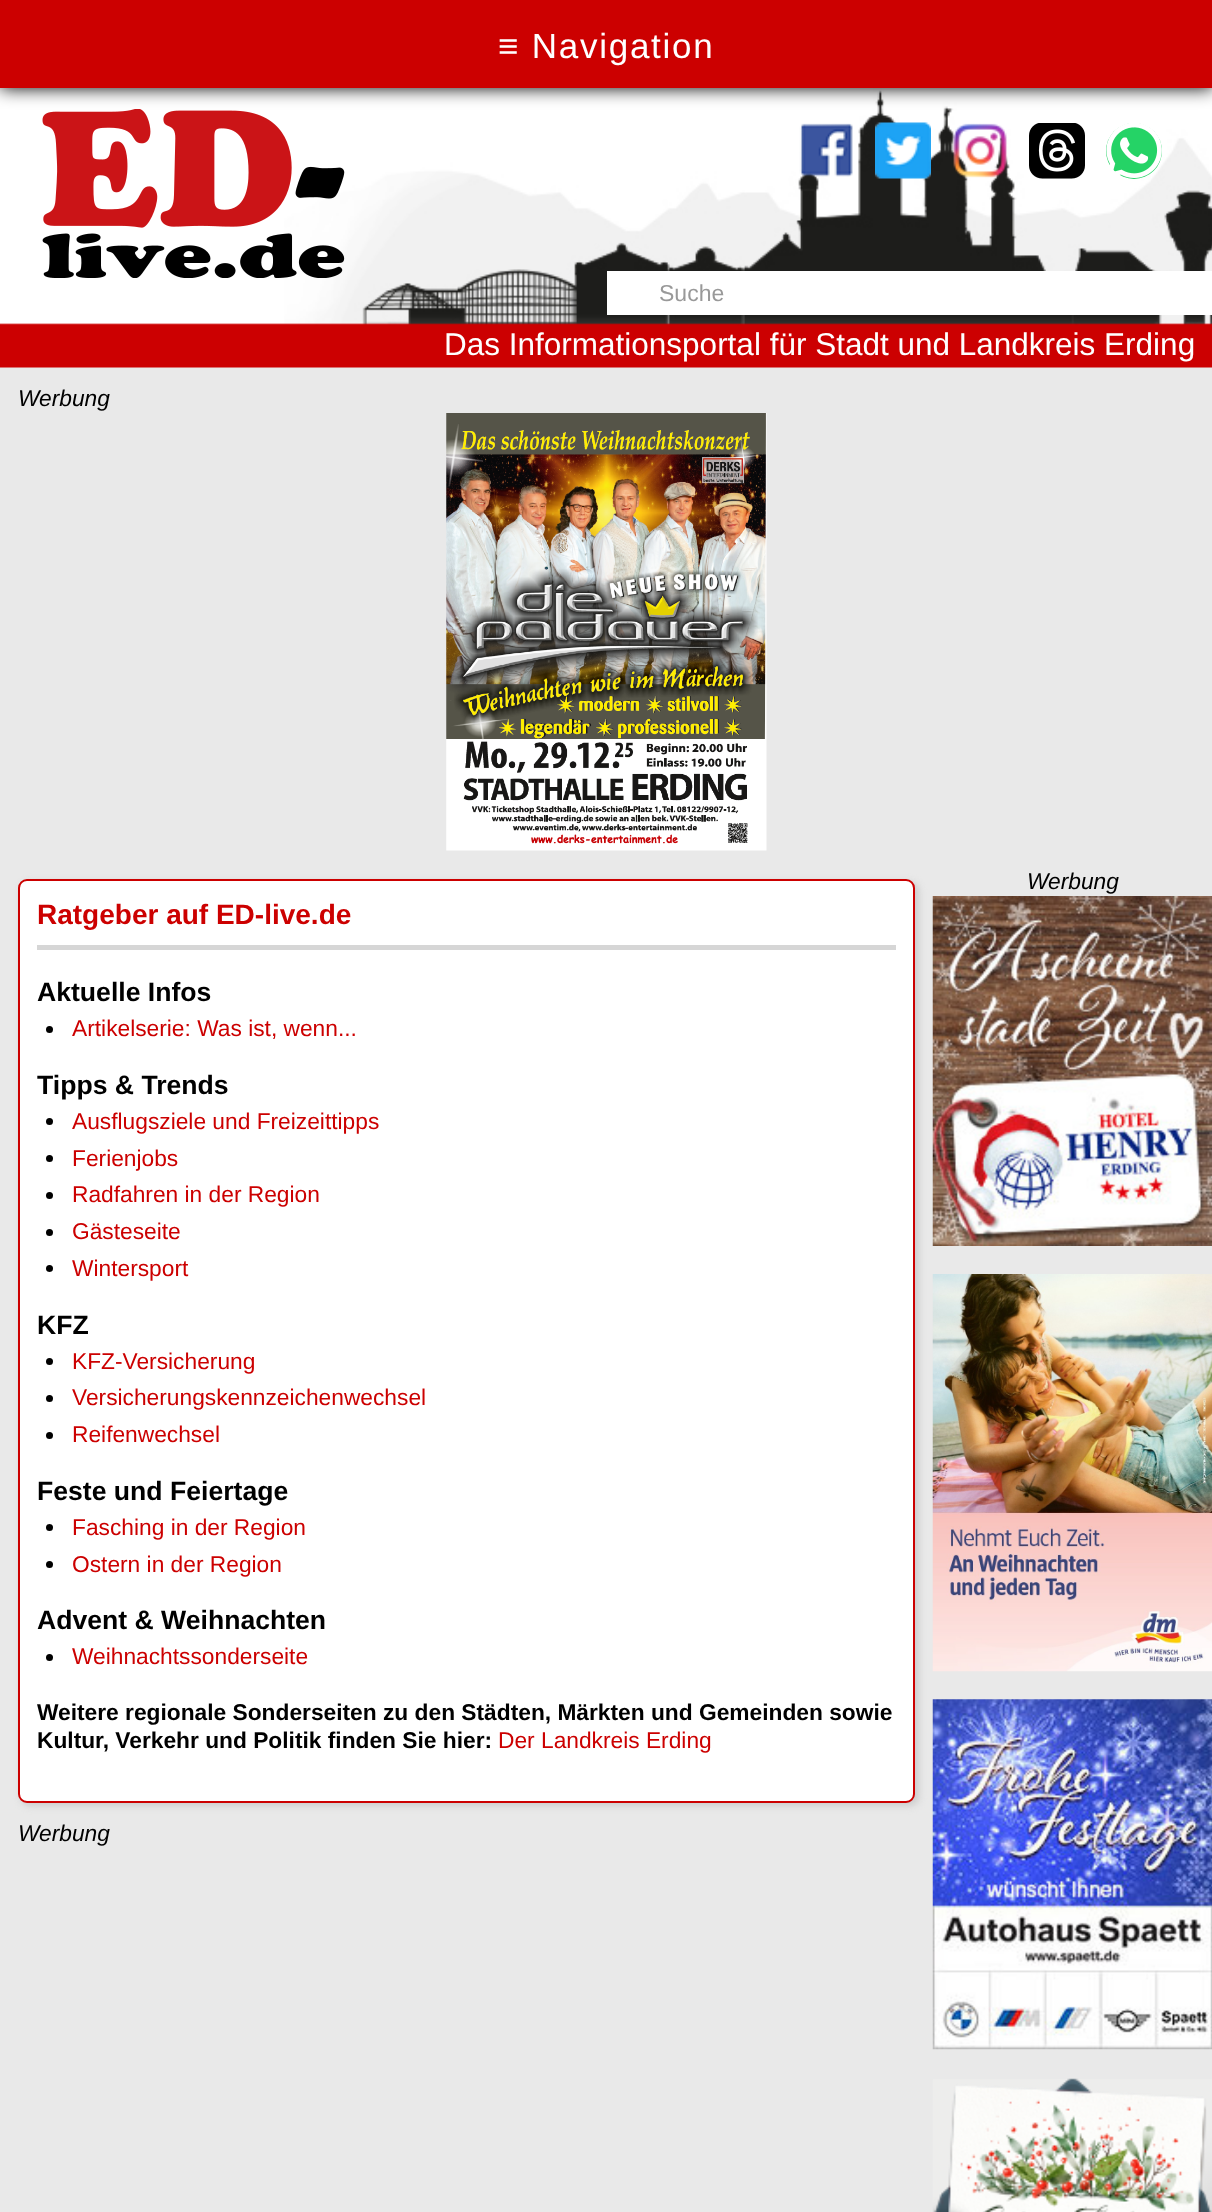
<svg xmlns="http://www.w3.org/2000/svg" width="1212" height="2212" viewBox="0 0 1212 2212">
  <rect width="100%" height="100%" fill="#e9e9e9"/>
  <image x="0" y="88" width="1212" height="280" href="img/1.png"/>
  <image x="42" y="109" width="303" height="169" href="img/2.png"/>
  <path d="M0 0h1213v88H0z" fill="#000" filter="blur(9px)"/>
  <path d="M0 0h1212v88H0z" fill="#c00"/>
  <image x="799" y="123" width="54" height="54" href="img/3.png"/>
  <image x="875" y="122" width="56" height="57" href="img/4.png"/>
  <image x="953" y="123" width="54" height="55" href="img/5.png"/>
  <image x="1029" y="123" width="56" height="56" href="img/6.png"/>
  <circle cx="1134" cy="151" r="28" fill="#25d366"/>
  <image x="1106" y="123" width="56" height="55" href="img/7.png"/>
  <path d="M607 271h605v44H607z" fill="#fff"/>
  <image x="446" y="413" width="321" height="438" href="img/8.png"/>
  <image x="932" y="896" width="280" height="350" href="img/9.png"/>
  <image x="932" y="1274" width="280" height="398" href="img/10.png"/>
  <image x="932" y="1699" width="280" height="351" href="img/11.png"/>
  <image x="932" y="2078" width="280" height="134" href="img/12.png"/>
  <rect x="21" y="882" width="898" height="924" rx="9" fill="#ccc" filter="blur(3.5px)"/>
  <rect x="19" y="880" width="895" height="922" rx="8" fill="#fff" stroke="#c00" stroke-width="2"/>
  <path d="M37 945h859v5H37z" fill="#d6d6d6"/>
  <circle cx="49.5" cy="1029.5" r="3.5" fill="#000"/>
  <circle cx="49.5" cy="1121.5" r="3.5" fill="#000"/>
  <circle cx="49.5" cy="1158.5" r="3.5" fill="#000"/>
  <circle cx="49.5" cy="1195.5" r="3.5" fill="#000"/>
  <circle cx="49.5" cy="1232.5" r="3.5" fill="#000"/>
  <circle cx="49.5" cy="1268.5" r="3.5" fill="#000"/>
  <circle cx="49.5" cy="1361.5" r="3.5" fill="#000"/>
  <circle cx="49.5" cy="1398.5" r="3.5" fill="#000"/>
  <circle cx="49.5" cy="1435.5" r="3.5" fill="#000"/>
  <circle cx="49.5" cy="1527.5" r="3.5" fill="#000"/>
  <circle cx="49.5" cy="1564.5" r="3.5" fill="#000"/>
  <circle cx="49.5" cy="1657.5" r="3.5" fill="#000"/>
  <text x="498" y="58" font-family="Liberation Sans" font-size="35" letter-spacing="1.75" fill="#fff">≡ Navigation</text>
  <text x="659" y="301" font-family="Liberation Sans" font-size="23" fill="#999">Suche</text>
  <text x="444" y="355" font-family="Liberation Sans" font-size="31.5" fill="#fff">Das Informationsportal für Stadt und Landkreis Erding</text>
  <g font-family="Liberation Sans" font-size="22.75" font-style="italic" fill="#000">
    <text x="18" y="406">Werbung</text>
    <text x="1027" y="889">Werbung</text>
  </g>
  <text x="37" y="924" font-family="Liberation Sans" font-size="28" font-weight="bold" fill="#c00">Ratgeber auf ED-live.de</text>
  <text x="37" y="1001" font-family="Liberation Sans" font-size="26.6" font-weight="bold" fill="#000">Aktuelle Infos</text>
  <text x="72" y="1036" font-family="Liberation Sans" font-size="22.75" fill="#c00">Artikelserie: Was ist, wenn...</text>
  <text x="37" y="1094" font-family="Liberation Sans" font-size="26.6" font-weight="bold" fill="#000">Tipps &amp; Trends</text>
  <g font-family="Liberation Sans" font-size="22.75" fill="#c00">
    <text x="72" y="1129">Ausflugsziele und Freizeittipps</text>
    <text x="72" y="1166">Ferienjobs</text>
    <text x="72" y="1202">Radfahren in der Region</text>
    <text x="72" y="1239">Gästeseite</text>
    <text x="72" y="1276">Wintersport</text>
  </g>
  <text x="37" y="1334" font-family="Liberation Sans" font-size="26.6" font-weight="bold" fill="#000">KFZ</text>
  <g font-family="Liberation Sans" font-size="22.75" fill="#c00">
    <text x="72" y="1369">KFZ-Versicherung</text>
    <text x="72" y="1405">Versicherungskennzeichenwechsel</text>
    <text x="72" y="1442">Reifenwechsel</text>
  </g>
  <text x="37" y="1500" font-family="Liberation Sans" font-size="26.6" font-weight="bold" fill="#000">Feste und Feiertage</text>
  <g font-family="Liberation Sans" font-size="22.75" fill="#c00">
    <text x="72" y="1535">Fasching in der Region</text>
    <text x="72" y="1572">Ostern in der Region</text>
  </g>
  <text x="37" y="1629" font-family="Liberation Sans" font-size="26.6" font-weight="bold" fill="#000">Advent &amp; Weihnachten</text>
  <text x="72" y="1664" font-family="Liberation Sans" font-size="22.75" fill="#c00">Weihnachtssonderseite</text>
  <g font-family="Liberation Sans" font-size="22.75" font-weight="bold" fill="#000">
    <text x="37" y="1720">Weitere regionale Sonderseiten zu den Städten, Märkten und Gemeinden sowie</text>
    <text x="37" y="1748">Kultur, Verkehr und Politik finden Sie hier:</text>
  </g>
  <text x="498" y="1748" font-family="Liberation Sans" font-size="22.75" fill="#c00">Der Landkreis Erding</text>
  <text x="18" y="1841" font-family="Liberation Sans" font-size="22.75" font-style="italic" fill="#000">Werbung</text>
</svg>
